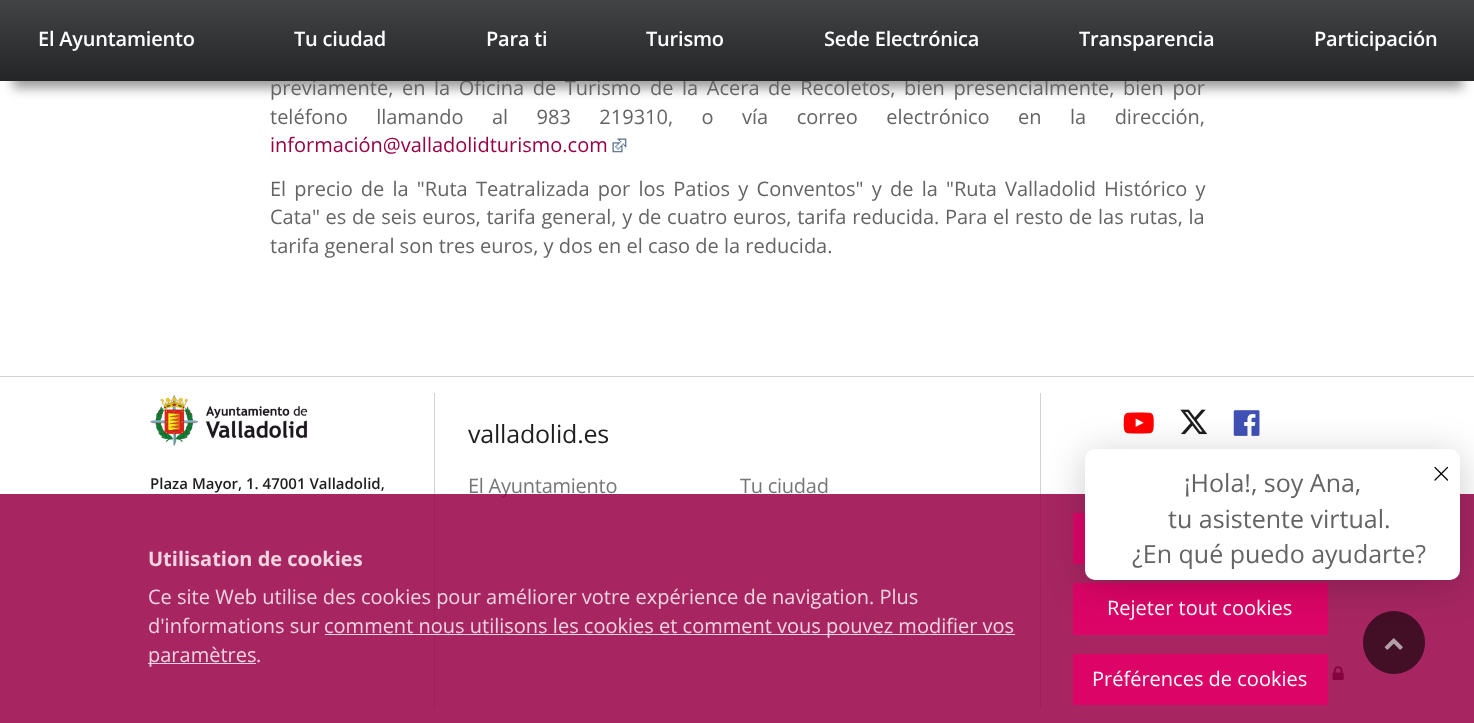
<svg xmlns="http://www.w3.org/2000/svg" width="1474" height="723" viewBox="0 0 1474 723">
  <defs>
    <linearGradient id="g1" gradientUnits="userSpaceOnUse" x1="738" y1="81" x2="738" y2="0"><stop offset="0" stop-color="#232526"/><stop offset="1" stop-color="#414345"/></linearGradient>
  </defs>
  <rect width="100%" height="100%" fill="#fff"/>
  <path d="M13 31h1450v57H13z" fill="#00000066" filter="blur(6px)"/>
  <image x="612" y="138" width="15" height="15" href="img/1.png"/>
  <path d="M0 376h1474v1H0z" fill="#d2d2d2"/>
  <path d="M434 393h1v315H434z" fill="#d2d2d2"/>
  <image x="150" y="395" width="49" height="51" href="img/2.png"/>
  <image x="205" y="406" width="103" height="33" href="img/3.png"/>
  <path d="M1040 393h1v315H1040z" fill="#d2d2d2"/>
  <image x="1123" y="412" width="31" height="22" href="img/4.png"/>
  <image x="1180" y="409" width="28" height="26" href="img/5.png"/>
  <image x="1233" y="410" width="27" height="26" href="img/6.png"/>
  <image x="1332" y="666" width="12" height="14" href="img/7.png"/>
  <text x="270" y="95" word-spacing="3.4" font-family="Open Sans" font-size="20" fill="#646464">previamente, en la Oficina de Turismo de la Acera de Recoletos, bien presencialmente, bien por</text>
  <path d="M0 0h1474v81H0z" fill="url(#g1)"/>
  <g font-family="Open Sans" font-size="20" font-weight="600" letter-spacing="-0.2" fill="#fff">
    <text x="1314" y="46">Participación</text>
    <text x="1079" y="46">Transparencia</text>
    <text x="824" y="46">Sede Electrónica</text>
    <text x="646" y="46">Turismo</text>
    <text x="486" y="46">Para ti</text>
    <text x="294" y="46">Tu ciudad</text>
    <text x="38" y="46">El Ayuntamiento</text>
  </g>
  <text x="270" y="124" word-spacing="23.25" font-family="Open Sans" font-size="20" fill="#646464">teléfono llamando al 983 219310, o vía correo electrónico en la dirección,</text>
  <text x="270" y="152" font-family="Open Sans" font-size="20" fill="#980046">información@valladolidturismo.com</text>
  <g font-family="Open Sans" font-size="20" fill="#646464">
    <text x="270" y="196" word-spacing="3">El precio de la "Ruta Teatralizada por los Patios y Conventos" y de la "Ruta Valladolid Histórico y</text>
    <text x="270" y="224" word-spacing="0.5">Cata" es de seis euros, tarifa general, y de cuatro euros, tarifa reducida. Para el resto de las rutas, la</text>
    <text x="270" y="253">tarifa general son tres euros, y dos en el caso de la reducida.</text>
  </g>
  <text x="150" y="489" font-family="Open Sans" font-size="15" font-weight="600" fill="#1e1e1e">Plaza Mayor, 1. 47001 Valladolid,</text>
  <text x="468" y="443" font-family="Open Sans" font-size="25" letter-spacing="-0.2" fill="#1e1e1e">valladolid.es</text>
  <g font-family="Open Sans" font-size="20" letter-spacing="-0.25" fill="#767677">
    <text x="468" y="493">El Ayuntamiento</text>
    <text x="740" y="493">Tu ciudad</text>
  </g>
  <path d="M0 494h1474v229H0z" fill="#980046d9"/>
  <text x="148" y="566" font-family="Open Sans" font-size="20" font-weight="bold" fill="#edd4e0">Utilisation de cookies</text>
  <g font-family="Open Sans" font-size="20" fill="#edd4e0">
    <text x="148" y="604">Ce site Web utilise des cookies pour améliorer votre expérience de navigation. Plus</text>
    <text x="148" y="633">d'informations sur</text>
  </g>
  <path d="M325 634h690v1H325z" fill="#ffffffcc"/>
  <text x="324" y="633" font-family="Open Sans" font-size="20" fill="#edd4e0">comment nous utilisons les cookies et comment vous pouvez modifier vos</text>
  <path d="M148 663h108v1H148z" fill="#edd4e0"/>
  <g font-family="Open Sans" font-size="20" fill="#edd4e0">
    <text x="148" y="662">paramètres</text>
    <text x="256" y="662">.</text>
  </g>
  <path d="M1073 513h12v51H1073z" fill="#dc0668"/>
  <path d="M1073 583h255v52H1073z" fill="#e50069d9"/>
  <text x="1107" y="615" font-family="Open Sans" font-size="20" fill="#fff">Rejeter tout cookies</text>
  <path d="M1073 654h255v51H1073z" fill="#e50069d9"/>
  <text x="1092" y="686" font-family="Open Sans" font-size="20" fill="#fff">Préférences de cookies</text>
  <rect x="1363.5" y="611.5" width="61" height="62" rx="30.5" fill="#430f27" stroke="#430f27"/>
  <image x="1384" y="638" width="19" height="12" href="img/8.png"/>
  <rect x="1085" y="455" width="375" height="131" rx="10" fill="#00000033" filter="blur(19px)"/>
  <rect x="1085" y="449" width="375" height="131" rx="10" fill="#fff"/>
  <path d="M1435 480L1447.5 467.5M1435 467.5L1447.5 480" fill="none" stroke="#000" stroke-width="1.2" stroke-linecap="round" stroke-linejoin="round"/>
  <g font-family="Open Sans" font-size="25" fill="#646464">
    <text x="1132" y="563">¿En qué puedo ayudarte?</text>
    <text x="1168" y="528">tu asistente virtual.</text>
    <text x="1184" y="492">¡Hola!, soy Ana,</text>
  </g>
</svg>
